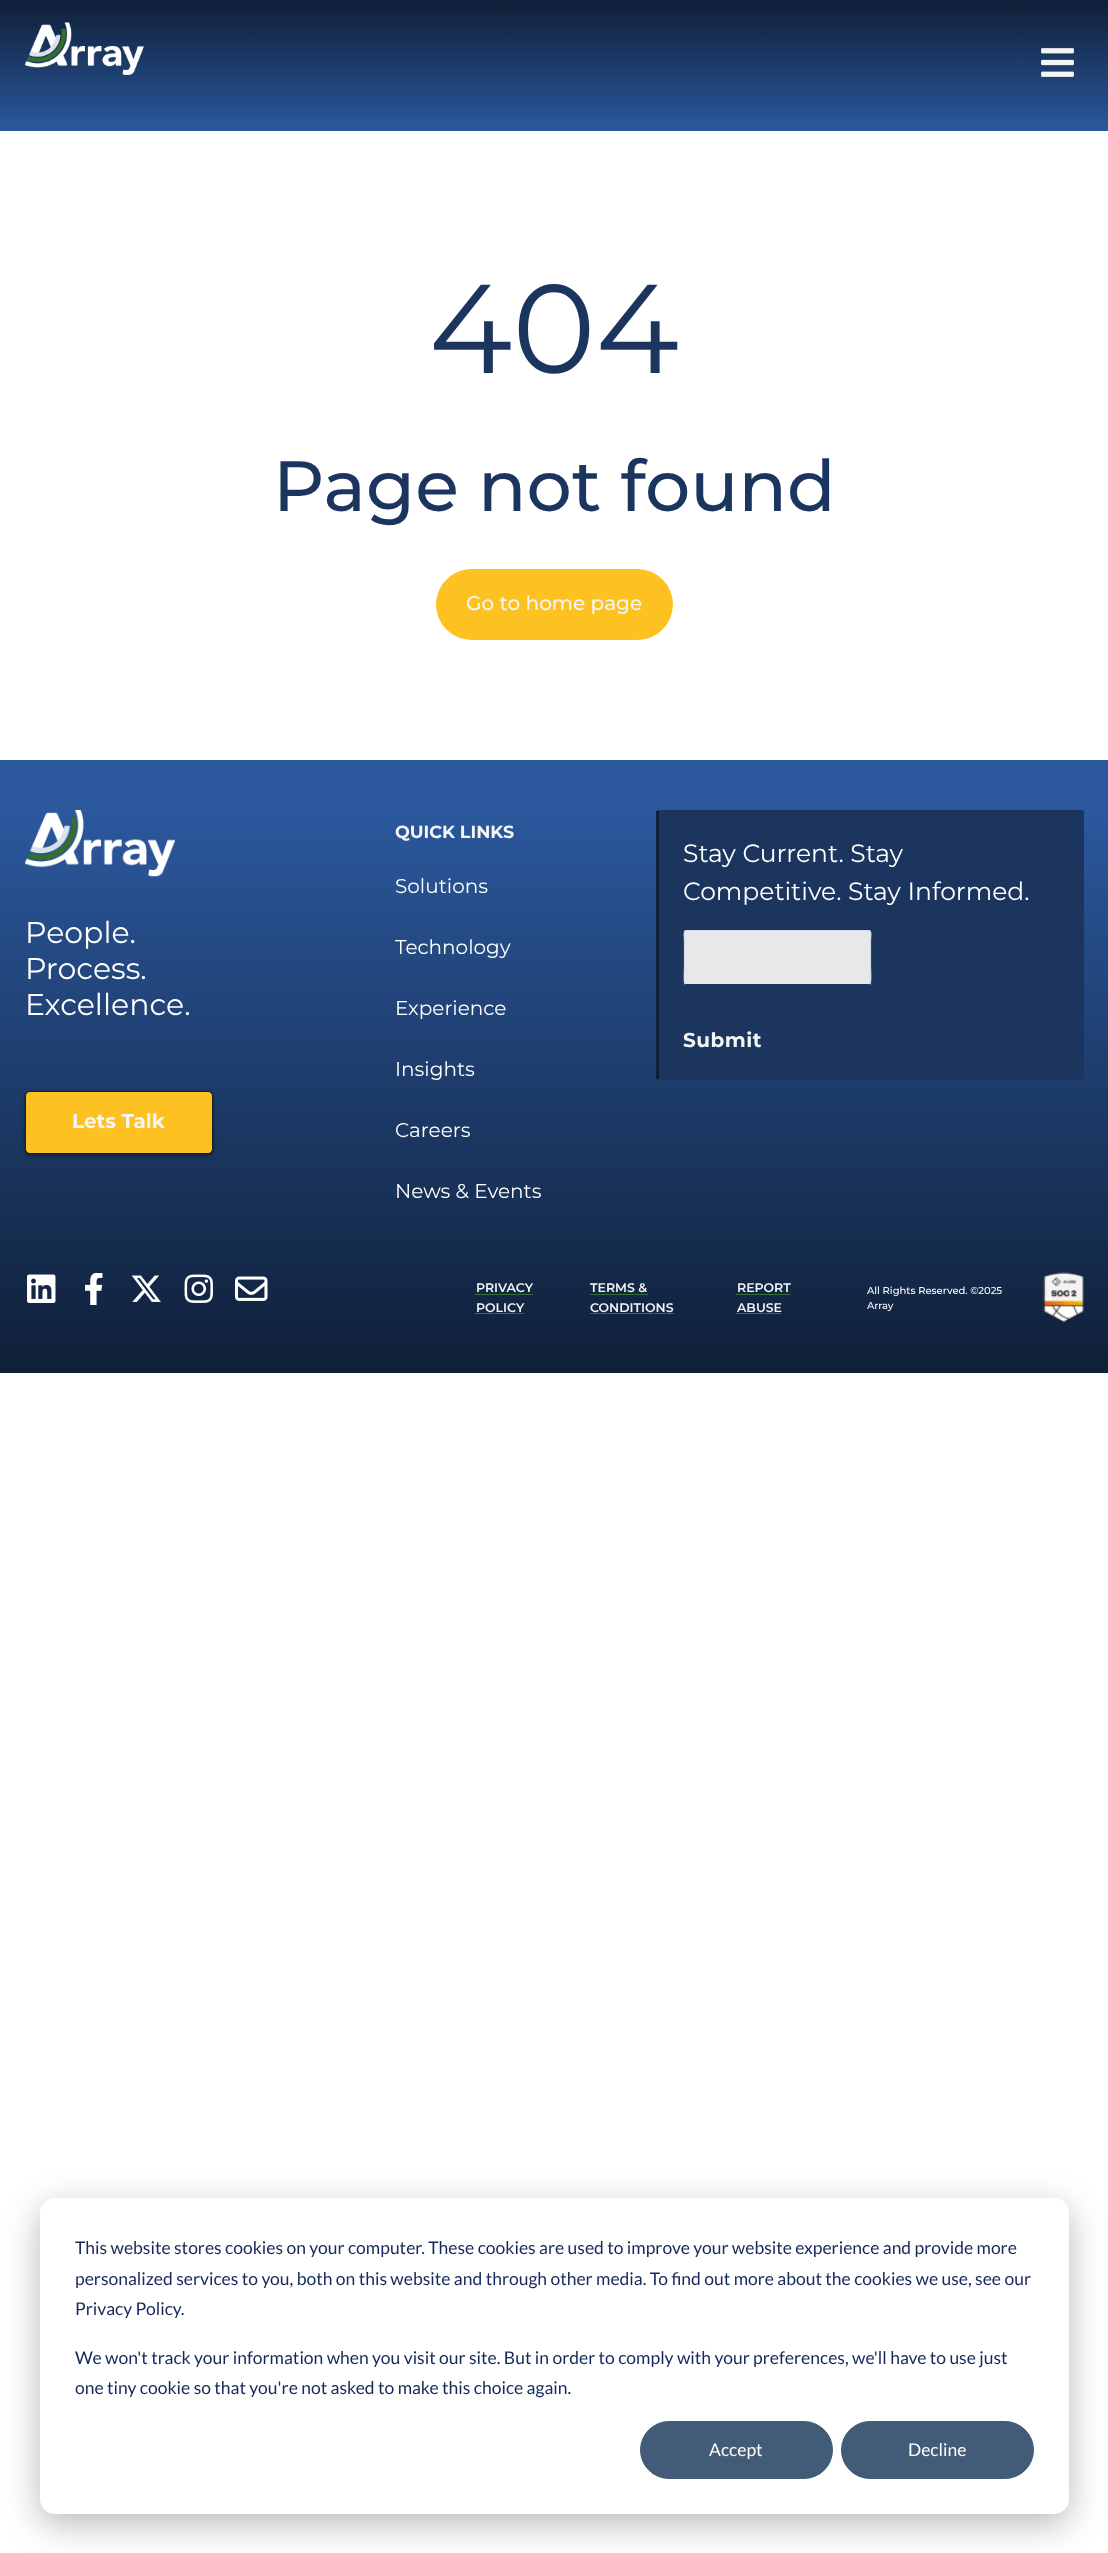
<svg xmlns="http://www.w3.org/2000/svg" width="1108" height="2553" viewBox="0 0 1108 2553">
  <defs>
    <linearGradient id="g1" gradientUnits="userSpaceOnUse" x1="554" y1="0" x2="554" y2="131"><stop offset="0" stop-color="#0f1f37"/><stop offset="1" stop-color="#2b589d"/></linearGradient>
    <linearGradient id="g2" gradientUnits="userSpaceOnUse" x1="554" y1="760" x2="554" y2="1373"><stop offset="0.08" stop-color="#2b589d"/><stop offset="1" stop-color="#0f1f37"/></linearGradient>
  </defs>
  <rect width="100%" height="100%" fill="#fff"/>
  <path d="M0 0h1108v131H0z" fill="url(#g1)"/>
  <image x="25" y="22" width="119" height="53" href="img/1.png"/>
  <image x="1041" y="48" width="33" height="29" href="img/2.png"/>
  <rect x="436" y="569" width="237" height="71" rx="35.5" fill="#fdc221"/>
  <path d="M0 760h1108v613H0z" fill="url(#g2)"/>
  <image x="25" y="810" width="150" height="67" href="img/3.png"/>
  <rect x="24" y="1091" width="190" height="65" rx="6" fill="#00000026" filter="blur(2px)"/>
  <rect x="25" y="1093" width="188" height="62" rx="5" fill="#0000004d" filter="blur(1px)"/>
  <rect x="25.5" y="1091.5" width="187" height="62" rx="4.5" fill="#fdc221" stroke="#1b1c1d"/>
  <rect x="656" y="810" width="428" height="270" rx="2.5" fill="#1b355e"/>
  <path d="M656 811h3v268H656z" fill="#0f1f37"/>
  <rect x="684" y="930" width="187" height="55" rx="2.5" fill="#e7e8e9"/>
  <path d="M870 984L869 984.5H686L685 984" fill="none" stroke="#1b355e" stroke-width="1.2"/>
  <path d="M685 984C683.5 982 684.5 968 684.5 966V941C684.5 937 683 930.5 686 930.5H869C872 930.5 870.5 937 870.5 941V966C870.5 968 871.5 982 870 984" fill="none" stroke="#d3dae4" stroke-width="1.2"/>
  <image x="27" y="1274" width="29" height="29" href="img/4.png"/>
  <image x="85" y="1273" width="18" height="32" href="img/5.png"/>
  <image x="131" y="1275" width="30" height="27" href="img/6.png"/>
  <image x="184" y="1274" width="29" height="29" href="img/7.png"/>
  <image x="235" y="1276" width="33" height="25" href="img/8.png"/>
  <path d="M475 1294h58v1H475z" fill="#367037"/>
  <path d="M475 1313h49v1H475z" fill="#367037"/>
  <path d="M590 1294h58v1H590z" fill="#367037"/>
  <path d="M590 1313h84v1H590z" fill="#367037"/>
  <path d="M736 1294h54v1H736z" fill="#367037"/>
  <path d="M736 1313h45v1H736z" fill="#367037"/>
  <image x="1043" y="1272" width="41" height="51" href="img/9.png"/>
  <rect x="40" y="2208" width="1029" height="316" rx="15" fill="#00000047" filter="blur(17.5px)"/>
  <rect x="40" y="2198" width="1029" height="316" rx="15" fill="#fff"/>
  <rect x="640.5" y="2421.5" width="192" height="57" rx="28.5" fill="#425b76" stroke="#425b76"/>
  <rect x="841.5" y="2421.5" width="192" height="57" rx="28.5" fill="#425b76" stroke="#425b76"/>
  <text x="429" y="373" font-family="Montserrat" font-size="126" fill="#1b355e">404</text>
  <text x="273" y="511" font-family="Montserrat" font-size="71.25" font-weight="500" fill="#1b355e">Page not found</text>
  <text x="466" y="610" font-family="Montserrat" font-size="20" font-weight="500" fill="#f4f5f5">Go to home page</text>
  <g font-family="Montserrat" font-size="30" fill="#fff">
    <text x="25" y="943">People.</text>
    <text x="25" y="979">Process.</text>
    <text x="25" y="1015">Excellence.</text>
  </g>
  <text x="72" y="1128" font-family="Montserrat" font-size="20" font-weight="bold" fill="#f4f5f5">Lets Talk</text>
  <text x="395" y="838" font-family="Montserrat" font-size="17.5" font-weight="bold" fill="#f4f5f5">QUICK LINKS</text>
  <g font-family="Montserrat" font-size="20" fill="#fff">
    <text x="395" y="893">Solutions</text>
    <text x="395" y="954">Technology</text>
    <text x="395" y="1015">Experience</text>
    <text x="395" y="1076">Insights</text>
    <text x="395" y="1137">Careers</text>
    <text x="395" y="1198">News &amp; Events</text>
  </g>
  <g font-family="Montserrat" font-size="25" fill="#fff">
    <text x="683" y="862">Stay Current. Stay</text>
    <text x="683" y="900">Competitive. Stay Informed.</text>
  </g>
  <text x="683" y="1047" font-family="Montserrat" font-size="20" font-weight="bold" letter-spacing="0.5" fill="#f4f5f5">Submit</text>
  <g font-family="Montserrat" font-size="12.5" font-weight="600" fill="#f4f5f5">
    <text x="476" y="1292">PRIVACY</text>
    <text x="476" y="1312">POLICY</text>
    <text x="590" y="1292">TERMS &amp;</text>
    <text x="590" y="1312">CONDITIONS</text>
    <text x="737" y="1292">REPORT</text>
    <text x="737" y="1312">ABUSE</text>
  </g>
  <g font-family="Montserrat" font-size="10" font-weight="500" fill="#fff">
    <text x="867" y="1294">All Rights Reserved. ©2025</text>
    <text x="867" y="1309">Array</text>
  </g>
  <g font-family="Lato" font-size="17.5" fill="#15295a">
    <text x="75" y="2254">This website stores cookies on your computer. These cookies are used to improve your website experience and provide more</text>
    <text x="75" y="2285">personalized services to you, both on this website and through other media. To find out more about the cookies we use, see our</text>
    <text x="75" y="2315">Privacy Policy.</text>
    <text x="75" y="2364">We won't track your information when you visit our site. But in order to comply with your preferences, we'll have to use just</text>
    <text x="75" y="2394">one tiny cookie so that you're not asked to make this choice again.</text>
  </g>
  <g font-family="Lato" font-size="17.5" fill="#fff">
    <text x="709" y="2456">Accept</text>
    <text x="908" y="2456">Decline</text>
  </g>
</svg>
